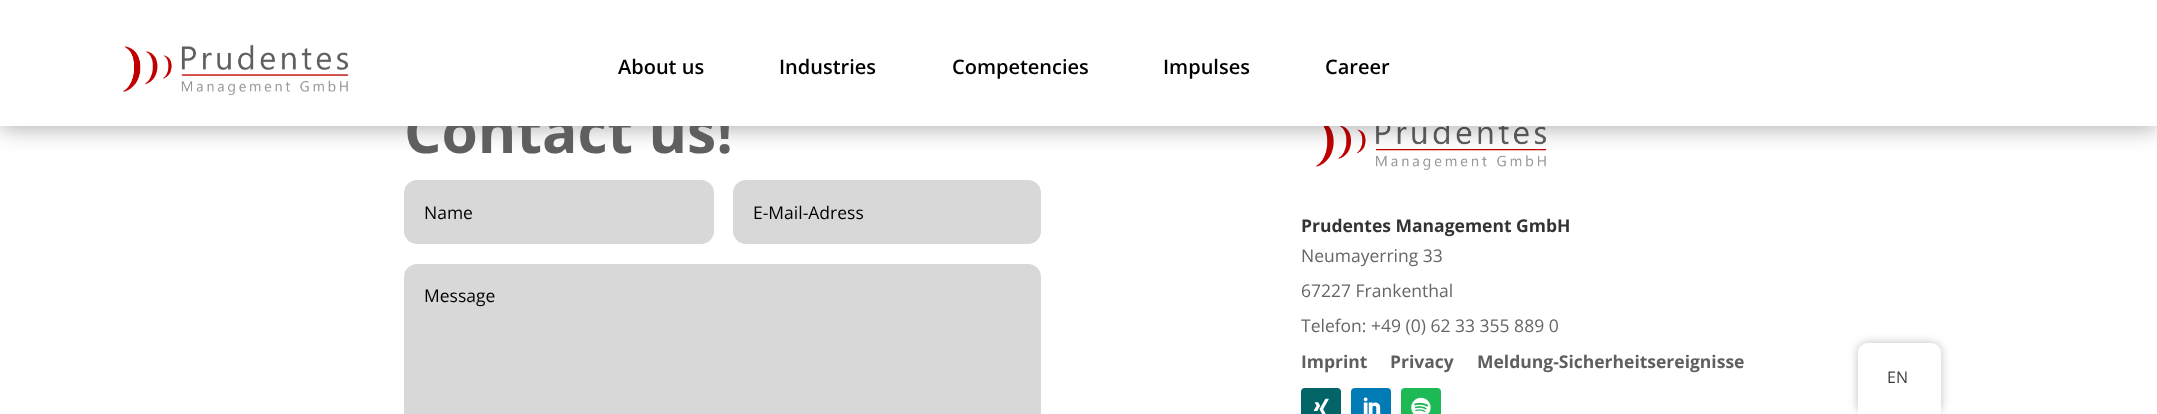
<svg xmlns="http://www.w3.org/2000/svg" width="2157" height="414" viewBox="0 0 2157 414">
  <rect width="100%" height="100%" fill="#fff"/>
  <image x="1316" y="126" width="231" height="44" href="img/2.png"/>
  <path d="M0 3h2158v126H0z" fill="#0000004d" filter="blur(11px)"/>
  <rect x="404" y="180" width="310" height="64" rx="13" fill="#d8d8d8"/>
  <rect x="733" y="180" width="308" height="64" rx="13" fill="#d8d8d8"/>
  <rect x="404" y="264" width="637" height="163" rx="13" fill="#d8d8d8"/>
  <rect x="1301" y="388" width="40" height="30" rx="4" fill="#026466"/>
  <image x="1313" y="398" width="16" height="16" href="img/3.png"/>
  <rect x="1351" y="388" width="40" height="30" rx="4" fill="#007bb6"/>
  <image x="1363" y="397" width="18" height="17" href="img/4.png"/>
  <rect x="1401" y="388" width="40" height="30" rx="4" fill="#1db954"/>
  <image x="1411" y="397" width="20" height="17" href="img/5.png"/>
  <rect x="1858" y="343" width="83" height="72" rx="10" fill="#00000040" filter="blur(5px)"/>
  <path d="M1868 343H1931C1936.5 343 1941 347.5 1941 353V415H1858V353C1858 347.5 1862.5 343 1868 343Z" fill="#fff"/>
  <text x="404" y="153" font-family="Open Sans" font-size="58.75" font-weight="bold" fill="#5f5f5f">Contact us!</text>
  <path d="M0 0h2157v126H0z" fill="#fff"/>
  <g font-family="Open Sans" font-size="20" font-weight="600" fill="#000">
    <text x="1325" y="74">Career</text>
    <text x="1163" y="74">Impulses</text>
    <text x="952" y="74">Competencies</text>
    <text x="779" y="74">Industries</text>
    <text x="618" y="74">About us</text>
  </g>
  <image x="123" y="44" width="226" height="52" href="img/1.png"/>
  <g font-family="Open Sans" font-size="17.5" fill="#000">
    <text x="424" y="219">Name</text>
    <text x="753" y="219">E-Mail-Adress</text>
    <text x="424" y="302">Message</text>
  </g>
  <text x="1301" y="232" font-family="Open Sans" font-size="17.5" font-weight="bold" fill="#333">Prudentes Management GmbH</text>
  <g font-family="Open Sans" font-size="17.5" fill="#666">
    <text x="1301" y="262">Neumayerring 33</text>
    <text x="1301" y="297">67227 Frankenthal</text>
    <text x="1301" y="332">Telefon: +49 (0) 62 33 355 889 0</text>
  </g>
  <g font-family="Open Sans" font-size="17.5" font-weight="bold" fill="#5f5f5f">
    <text x="1301" y="368">Imprint</text>
    <text x="1390" y="368">Privacy</text>
    <text x="1477" y="368">Meldung-Sicherheitsereignisse</text>
  </g>
  <text x="1887" y="383" font-family="Open Sans" font-size="16" fill="#404040">EN</text>
</svg>
